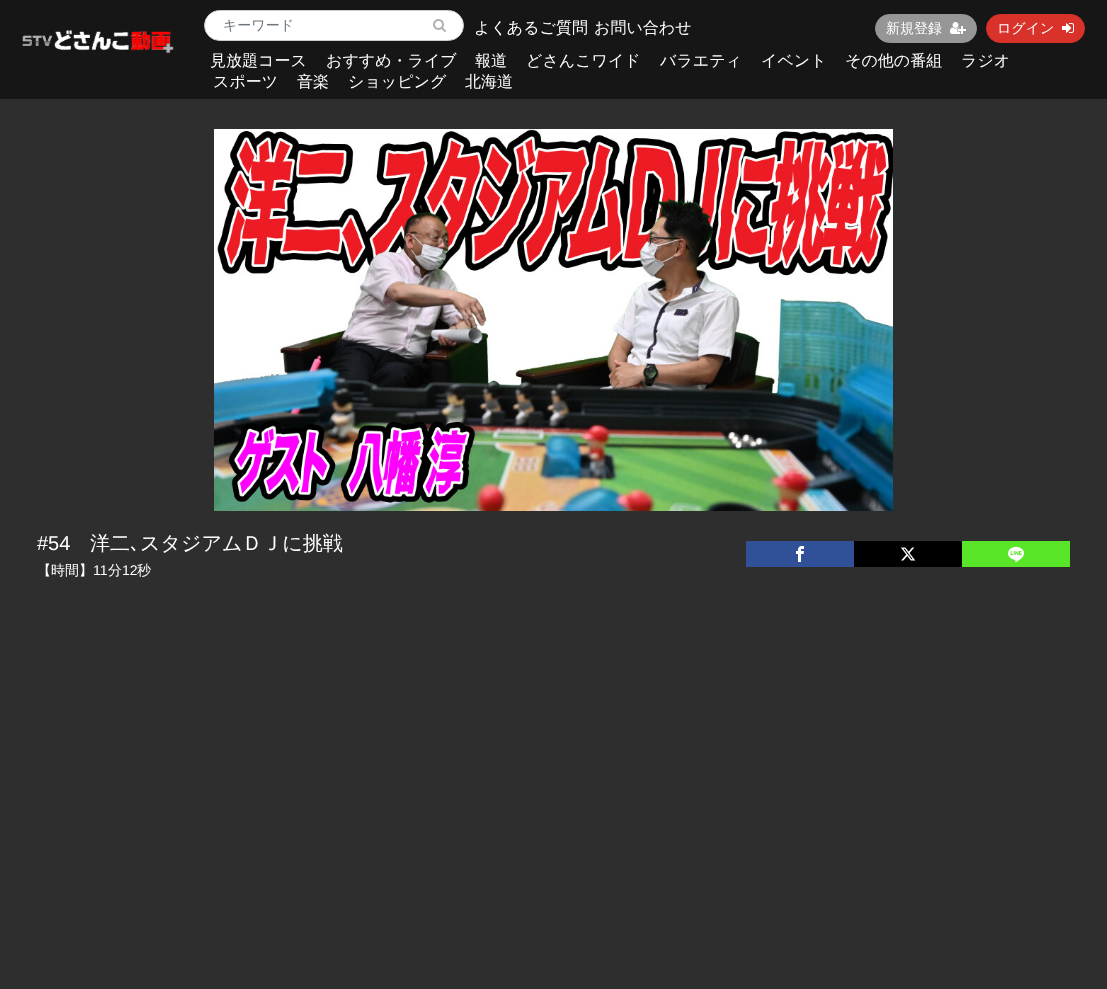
<svg xmlns="http://www.w3.org/2000/svg" width="1107" height="989" viewBox="0 0 1107 989">
  <rect width="100%" height="100%" fill="#2e2e2e"/>
  <path d="M0 0h1107v99H0z" fill="#161616"/>
  <image x="22" y="30" width="152" height="24" href="img/1.png"/>
  <rect x="204.5" y="10.5" width="259" height="30" rx="15" fill="#fff" stroke="#ccc"/>
  <path d="M218 11H425V39H218C216.5 39 215 37.5 215 36V14C215 12.5 216.5 11 218 11Z" fill="#fff"/>
  <image x="433" y="19" width="13" height="13" href="img/2.png"/>
  <rect x="875.5" y="14.5" width="101" height="28" rx="14" fill="#969696" stroke="#969696"/>
  <image x="950" y="22" width="16" height="12" href="img/3.png"/>
  <rect x="986.5" y="14.5" width="98" height="28" rx="14" fill="#d8322a" stroke="#d8322a"/>
  <image x="1062" y="23" width="12" height="10" href="img/4.png"/>
  <image x="214" y="129" width="679" height="382" href="img/5.png"/>
  <path d="M746 541h108v26H746z" fill="#305097"/>
  <image x="796" y="546" width="8" height="16" href="img/6.png"/>
  <path d="M854 541h108v26H854z" fill="#000"/>
  <image x="901" y="547" width="15" height="14" href="img/7.png"/>
  <path d="M962 541h108v26H962z" fill="#5ae628"/>
  <image x="1008" y="546" width="16" height="17" href="img/8.png"/>
  <text x="223" y="30" font-family="WenQuanYi Zen Hei" font-size="14" font-weight="500" fill="#6c757d">キーワード</text>
  <g font-family="WenQuanYi Zen Hei" font-size="16" font-weight="500" fill="#fff">
    <text x="474" y="33">よくあるご質問</text>
    <text x="594" y="33">お問い合わせ</text>
  </g>
  <g font-family="WenQuanYi Zen Hei" font-size="14" font-weight="500" fill="#fff">
    <text x="886" y="33">新規登録</text>
    <text x="997" y="33">ログイン</text>
  </g>
  <g font-family="WenQuanYi Zen Hei" font-size="16" font-weight="500" fill="#fff">
    <text x="210" y="66">見放題コース</text>
    <text x="326" y="66">おすすめ・ライブ</text>
    <text x="475" y="66">報道</text>
    <text x="526" y="66">どさんこワイド</text>
    <text x="660" y="66">バラエティ</text>
    <text x="761" y="66">イベント</text>
    <text x="845" y="66">その他の番組</text>
    <text x="961" y="66">ラジオ</text>
    <text x="213" y="87">スポーツ</text>
    <text x="297" y="87">音楽</text>
    <text x="348" y="87">ショッピング</text>
    <text x="465" y="87">北海道</text>
  </g>
  <text x="37" y="550" font-family="Liberation Sans" font-size="20" fill="#fff">#54</text>
  <text x="90" y="550" font-family="WenQuanYi Zen Hei" font-size="20" font-weight="500" fill="#fff">洋二</text>
  <text x="130" y="550" font-family="IPAPGothic" font-size="20" fill="#fff">､</text>
  <text x="140" y="550" font-family="WenQuanYi Zen Hei" font-size="20" font-weight="500" fill="#fff">スタジアムＤＪに挑戦</text>
  <text x="37" y="575" font-family="WenQuanYi Zen Hei" font-size="14" font-weight="500" fill="#fff">【時間】</text>
  <text x="93" y="575" font-family="Liberation Sans" font-size="14" fill="#fff">11</text>
  <text x="108" y="575" font-family="WenQuanYi Zen Hei" font-size="14" font-weight="500" fill="#fff">分</text>
  <text x="122" y="575" font-family="Liberation Sans" font-size="14" fill="#fff">12</text>
  <text x="137" y="575" font-family="WenQuanYi Zen Hei" font-size="14" font-weight="500" fill="#fff">秒</text>
</svg>
